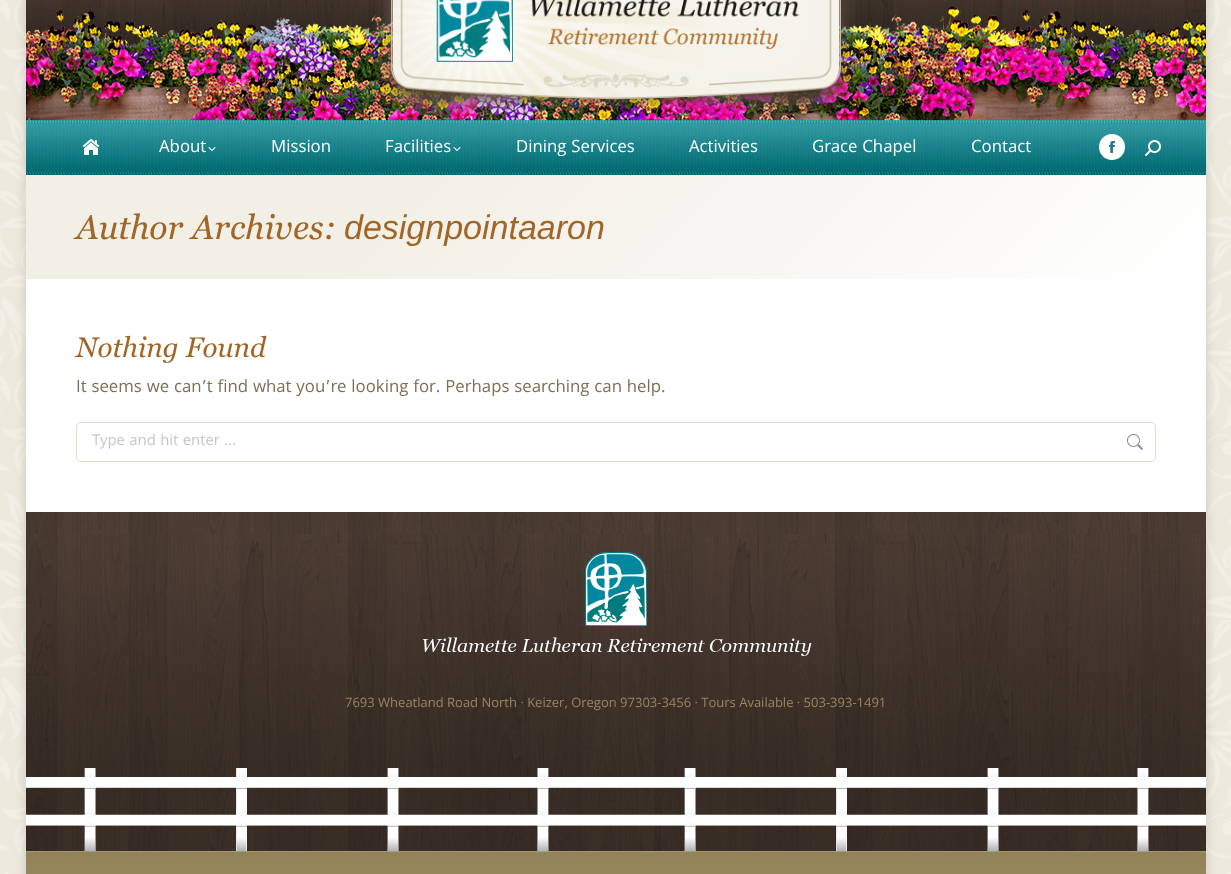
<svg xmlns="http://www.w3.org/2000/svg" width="1231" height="874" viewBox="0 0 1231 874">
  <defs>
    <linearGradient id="g1" gradientUnits="userSpaceOnUse" x1="295" y1="-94" x2="937" y2="548"><stop offset="0.3" stop-color="#f2efe6"/><stop offset="1" stop-color="#fff"/></linearGradient>
  </defs>
  <rect width="100%" height="100%" fill="#fff"/>
  <image x="0" y="0" width="1231" height="874" href="img/1.png"/>
  <path d="M26 -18h1180v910H26z" fill="#00000026" filter="blur(6px)"/>
  <path d="M26 279h1180v233H26z" fill="#fff"/>
  <image x="26" y="0" width="1180" height="175" href="img/2.png"/>
  <image x="370" y="0" width="492" height="123" href="img/3.png"/>
  <image x="83" y="139" width="16" height="16" href="img/4.png"/>
  <image x="208" y="147" width="8" height="4" href="img/5.png"/>
  <image x="453" y="147" width="8" height="4" href="img/6.png"/>
  <circle cx="1112" cy="147" r="13" fill="#fff"/>
  <image x="1109" y="141" width="6" height="12" href="img/7.png"/>
  <image x="1145" y="140" width="16" height="16" href="img/8.png"/>
  <path d="M26 175h1180v104H26z" fill="url(#g1)"/>
  <rect x="76.5" y="422.5" width="1079" height="39" rx="4.5" fill="none" stroke="#e3decc"/>
  <image x="1127" y="434" width="16" height="16" href="img/9.png"/>
  <image x="26" y="512" width="1180" height="362" href="img/10.png"/>
  <image x="422" y="552" width="390" height="104" href="img/11.png"/>
  <g font-family="Khula" font-size="18" fill="#fff">
    <text x="159" y="152">About</text>
    <text x="271" y="152">Mission</text>
    <text x="385" y="152">Facilities</text>
    <text x="516" y="152">Dining Services</text>
    <text x="689" y="152">Activities</text>
    <text x="812" y="152">Grace Chapel</text>
    <text x="971" y="152">Contact</text>
  </g>
  <text x="76" y="239" font-family="Georgia" font-size="34" font-style="italic" fill="#a16626">Author Archives:</text>
  <text x="344" y="239" font-family="Liberation Sans" font-size="34" font-style="italic" fill="#a16626">designpointaaron</text>
  <text x="76" y="357" font-family="Georgia" font-size="28" font-style="italic" fill="#a16626">Nothing Found</text>
  <text x="76" y="392" font-family="Khula" font-size="18" fill="#7b7054">It seems we can’t find what you’re looking for. Perhaps searching can help.</text>
  <text x="92" y="445" font-family="Khula" font-size="16" fill="#c5c6ca">Type and hit enter …</text>
  <text x="345" y="707" font-family="Open Sans" font-size="13" fill="#978760">7693 Wheatland Road North · Keizer, Oregon 97303-3456 · Tours Available · 503-393-1491</text>
</svg>
